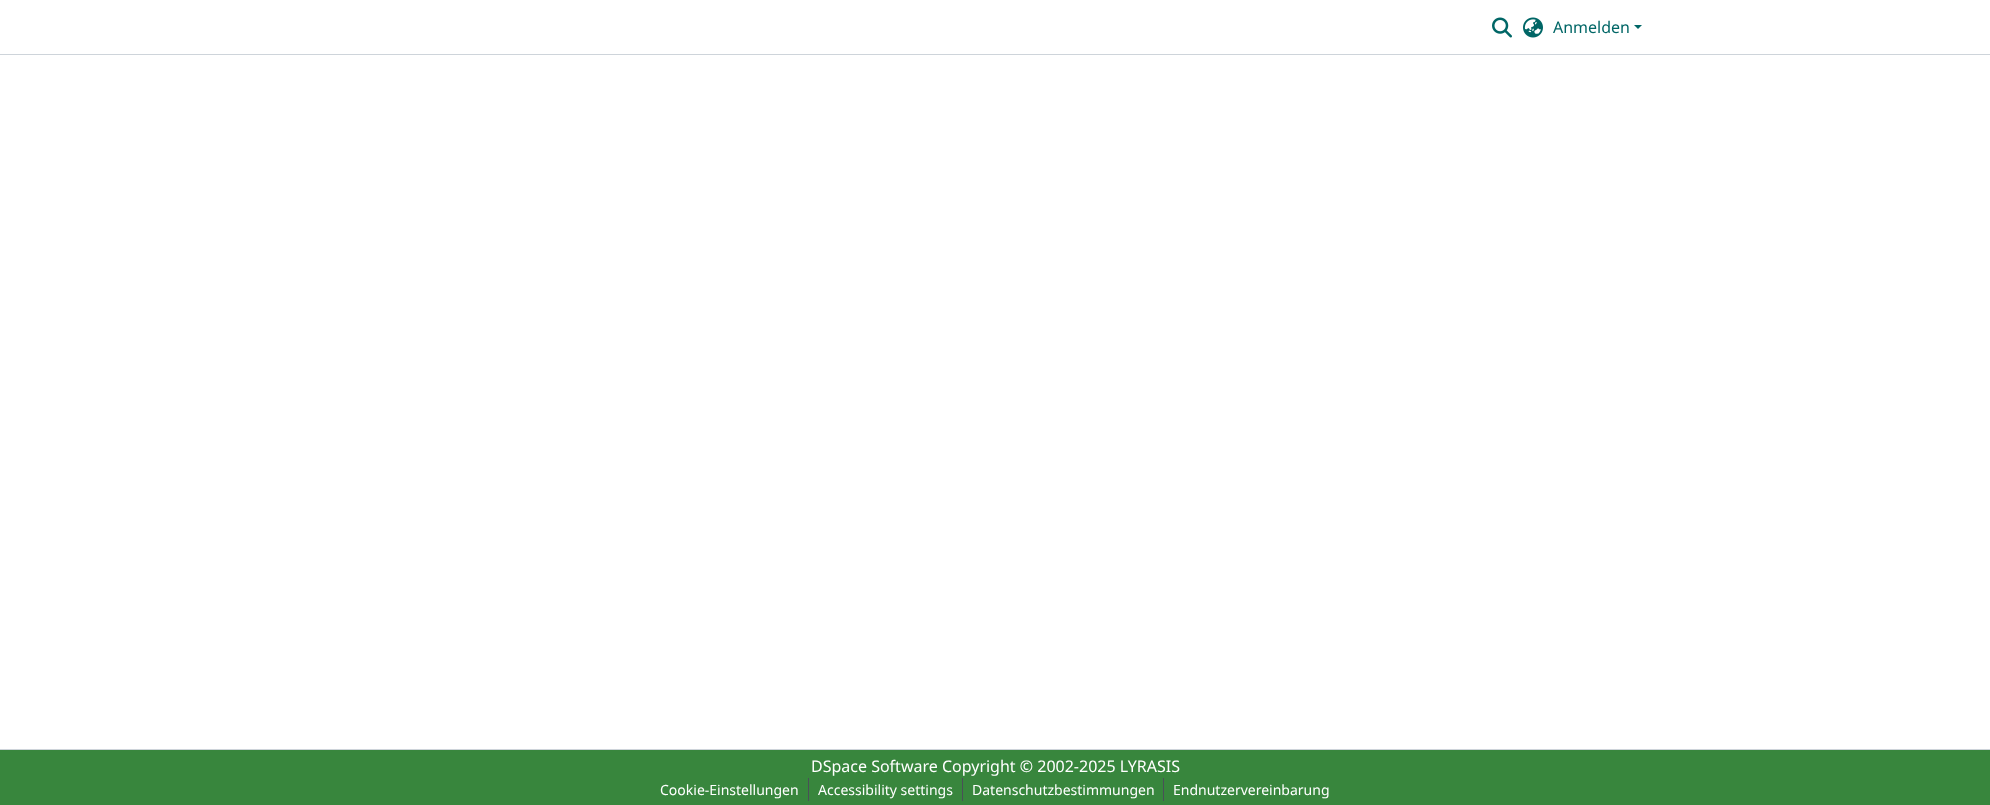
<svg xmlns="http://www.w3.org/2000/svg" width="1990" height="805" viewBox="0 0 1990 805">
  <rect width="100%" height="100%" fill="#fff"/>
  <path d="M0 54h1990v1H0z" fill="#ced4da"/>
  <image x="1492" y="17" width="20" height="21" href="img/1.png"/>
  <image x="1523" y="17" width="20" height="21" href="img/2.png"/>
  <path d="M1634 25H1642L1638 29Z" fill="#066"/>
  <path d="M0 750h1990v55H0z" fill="#38863d"/>
  <path d="M0 749h1990v1H0z" fill="#ced4da"/>
  <path d="M808 778h1v23H808z" fill="#495057"/>
  <path d="M962 778h1v23H962z" fill="#495057"/>
  <path d="M1163 778h1v23H1163z" fill="#495057"/>
  <text x="1553" y="33" font-family="Noto Sans" font-size="16" fill="#066">Anmelden</text>
  <text x="811" y="772" font-family="Noto Sans" font-size="16" fill="#fff">DSpace Software Copyright © 2002-2025 LYRASIS</text>
  <g font-family="Noto Sans" font-size="14" fill="#fff">
    <text x="660" y="795">Cookie-Einstellungen</text>
    <text x="818" y="795">Accessibility settings</text>
    <text x="972" y="795">Datenschutzbestimmungen</text>
    <text x="1173" y="795">Endnutzervereinbarung</text>
  </g>
</svg>
